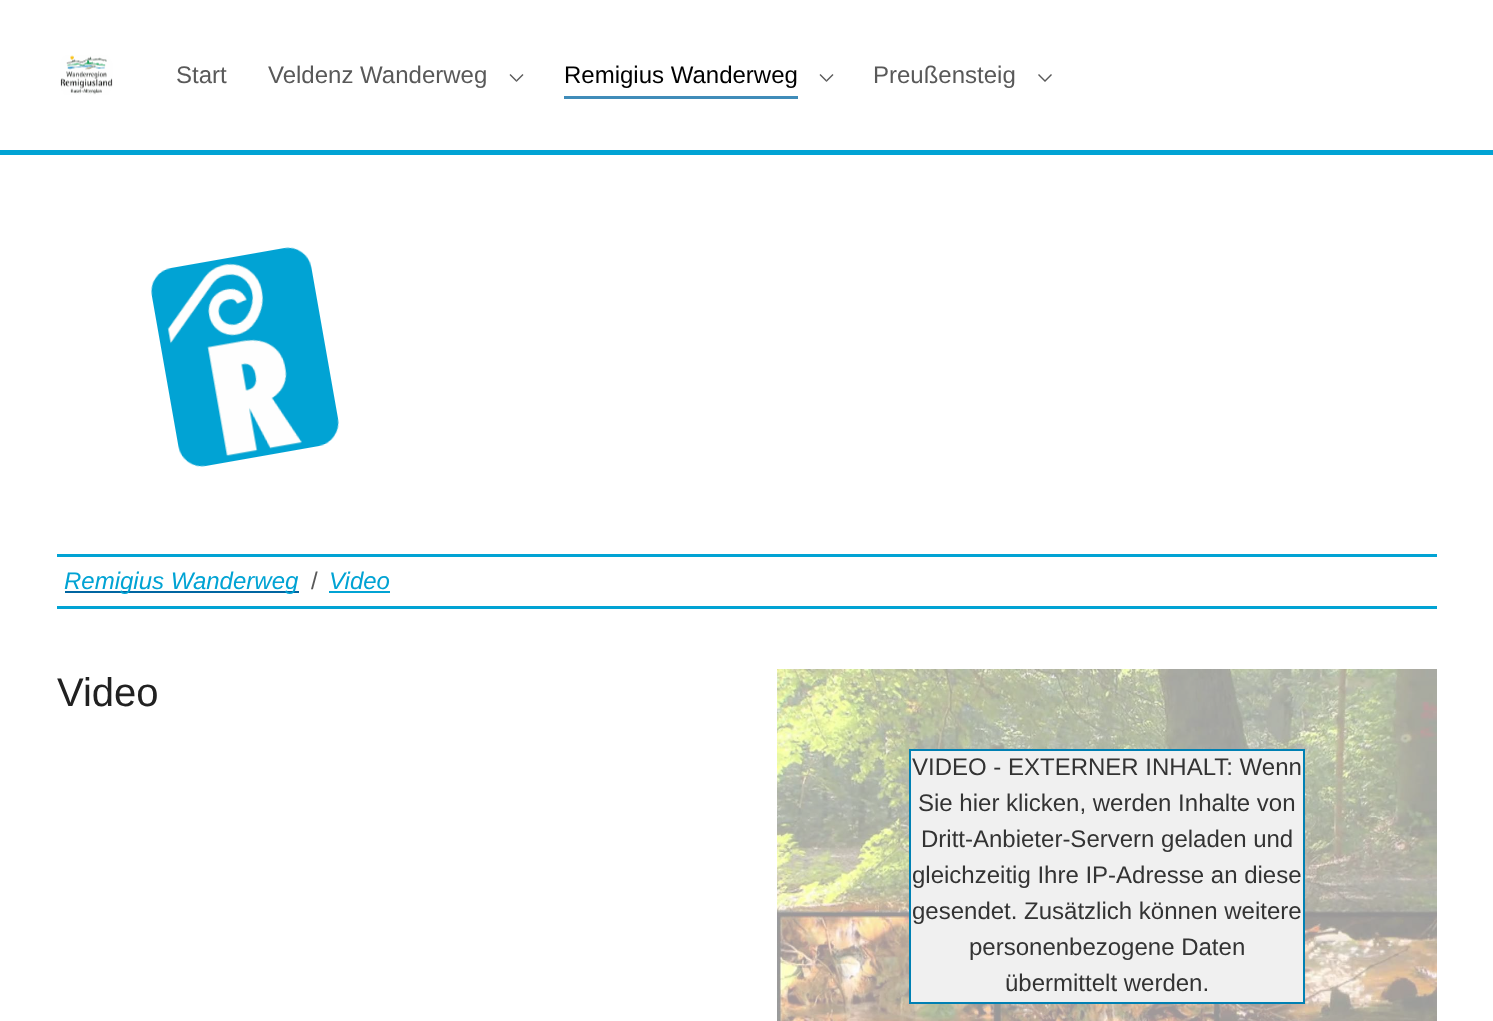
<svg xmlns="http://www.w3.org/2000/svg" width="1493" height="1021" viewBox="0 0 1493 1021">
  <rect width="100%" height="100%" fill="#fff"/>
  <path d="M0 150h1493v5H0z" fill="#01a3d4"/>
  <image x="60" y="55" width="53" height="40" href="img/1.png"/>
  <path d="M516.5 82L509.5 75L510.5 74L516.5 80Z" fill="#595959"/>
  <path d="M523.5 75L516.5 82V80L522.5 74Z" fill="#000000a6"/>
  <path d="M564 96h234v3H564z" fill="#408cb9"/>
  <path d="M826.5 82L819.5 75L820.5 74L826.5 80Z" fill="#595959"/>
  <path d="M833.5 75L826.5 82V80L832.5 74Z" fill="#000000a6"/>
  <path d="M1045 82L1038 75L1039 74L1045 80ZM1052 75L1045 82V80L1051 74Z" fill="#595959"/>
  <image x="150" y="247" width="189" height="220" href="img/2.png"/>
  <path d="M57 554h1380v3H57z" fill="#01a3d4"/>
  <path d="M57 606h1380v3H57z" fill="#01a3d4"/>
  <path d="M65 591h234v2H65z" fill="#0065a1"/>
  <path d="M329 591h61v2H329z" fill="#01a3d4"/>
  <image x="777" y="669" width="660" height="352" href="img/3.png"/>
  <path d="M910 750h394v253H910z" fill="#f0f0f0" stroke="#0080b3" stroke-width="2"/>
  <g font-family="Liberation Sans" font-size="24" fill="#595959">
    <text x="176" y="83">Start</text>
    <text x="268" y="83">Veldenz Wanderweg</text>
  </g>
  <text x="564" y="83" font-family="Liberation Sans" font-size="24" fill="#000">Remigius Wanderweg</text>
  <text x="873" y="83" font-family="Liberation Sans" font-size="24" fill="#595959">Preußensteig</text>
  <text x="64" y="589" font-family="Liberation Sans" font-size="24" font-style="italic" fill="#01a3d4">Remigius Wanderweg</text>
  <text x="311" y="589" font-family="Liberation Sans" font-size="24" fill="#595959">/</text>
  <text x="329" y="589" font-family="Liberation Sans" font-size="24" font-style="italic" fill="#01a3d4">Video</text>
  <text x="57" y="706" font-family="Liberation Sans" font-size="40" fill="#212121">Video</text>
  <g font-family="Liberation Sans" font-size="24" fill="#333">
    <text x="912" y="775">VIDEO - EXTERNER INHALT: Wenn</text>
    <text x="918" y="811">Sie hier klicken, werden Inhalte von</text>
    <text x="921" y="847">Dritt-Anbieter-Servern geladen und</text>
    <text x="912" y="883">gleichzeitig Ihre IP-Adresse an diese</text>
    <text x="912" y="919">gesendet. Zusätzlich können weitere</text>
    <text x="969" y="955">personenbezogene Daten</text>
    <text x="1005" y="991">übermittelt werden.</text>
  </g>
</svg>
